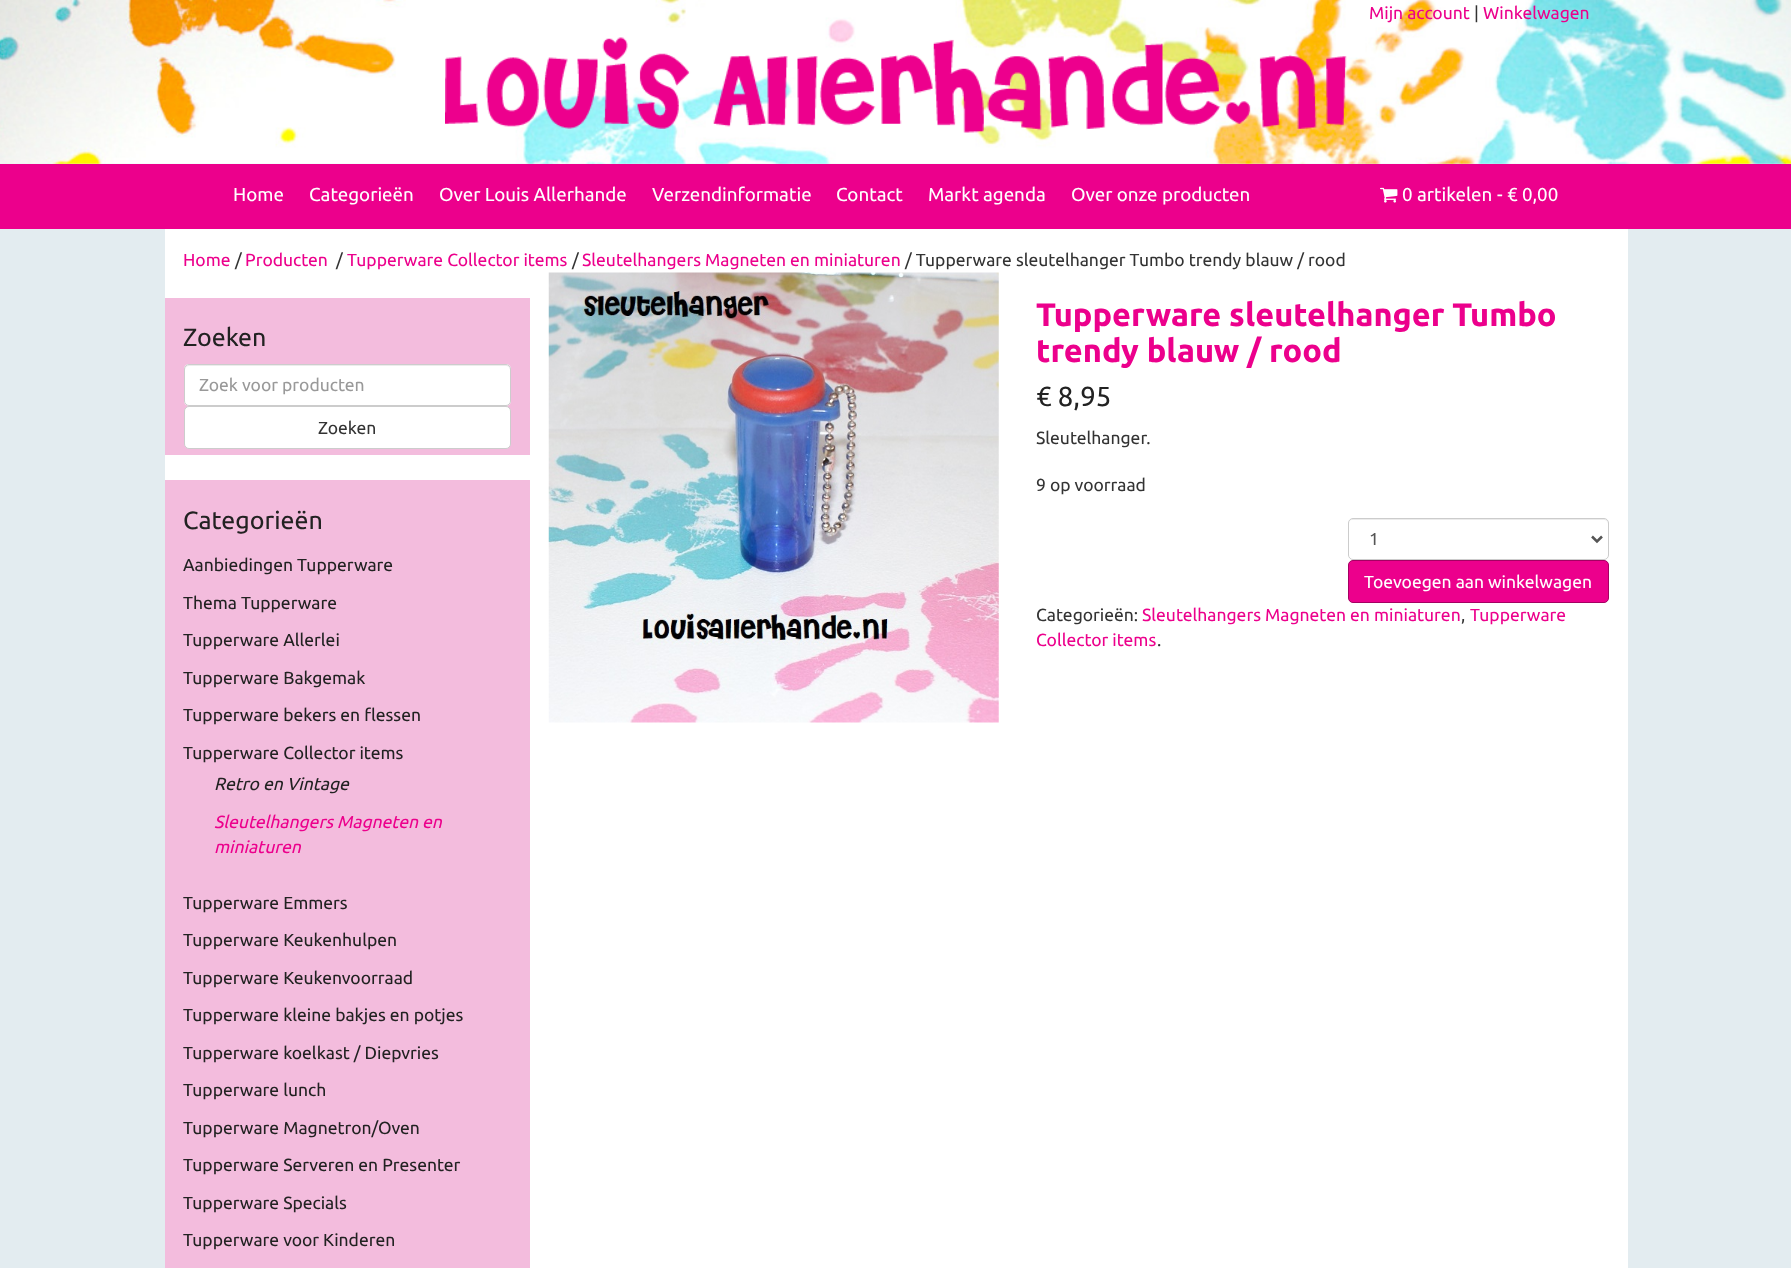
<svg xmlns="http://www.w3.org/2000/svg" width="1791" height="1268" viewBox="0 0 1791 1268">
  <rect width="100%" height="100%" fill="#e3ecf0"/>
  <image x="0" y="0" width="1791" height="164" href="img/1.png"/>
  <image x="445" y="37" width="902" height="96" href="img/2.png"/>
  <path d="M0 164h1791v65H0z" fill="#ec008c"/>
  <image x="1380" y="187" width="18" height="16" href="img/3.png"/>
  <path d="M165 229h1463v1039H165z" fill="#fff"/>
  <path d="M165 298h365v157H165z" fill="#f3bcdd"/>
  <rect x="184" y="364" width="327" height="42" rx="5" fill="#fff"/>
  <path d="M189 366H506C508 366 510 368 510 370V369C510 367 508 365 506 365H189C187 365 185 367 185 369V370C185 368 187 366 189 366Z" fill="#ececec"/>
  <rect x="184.5" y="364.5" width="326" height="41" rx="4.5" fill="none" stroke="#ccc"/>
  <rect x="184.5" y="406.5" width="326" height="42" rx="4.5" fill="#fff" stroke="#ccc"/>
  <path d="M165 480h365v788H165z" fill="#f3bcdd"/>
  <image x="548" y="272" width="451" height="451" href="img/4.png"/>
  <path d="M1352 520H1604C1606 520 1608 522 1608 524V523C1608 521 1606 519 1604 519H1353C1351 519 1349 521 1349 523V524C1349 522 1350 520 1352 520Z" fill="#ececec"/>
  <rect x="1348.5" y="518.5" width="260" height="41" rx="4.5" fill="none" stroke="#ccc"/>
  <path d="M1592 536.5L1597 541.5L1602 536.5" fill="none" stroke="#555" stroke-width="2.5"/>
  <rect x="1348.5" y="560.5" width="260" height="42" rx="4.5" fill="#ec008c" stroke="#a50062"/>
  <text x="1369" y="19" font-family="Ubuntu" font-size="17.5" fill="#ec008c">Mijn account</text>
  <text x="1474" y="19" font-family="Ubuntu" font-size="17.5" fill="#333">|</text>
  <text x="1483" y="19" font-family="Ubuntu" font-size="17.5" fill="#ec008c">Winkelwagen</text>
  <g font-family="Ubuntu" font-size="18.75" fill="#fff">
    <text x="233" y="201">Home</text>
    <text x="309" y="201">Categorieën</text>
    <text x="439" y="201">Over Louis Allerhande</text>
    <text x="652" y="201">Verzendinformatie</text>
    <text x="836" y="201">Contact</text>
    <text x="928" y="201">Markt agenda</text>
    <text x="1071" y="201">Over onze producten</text>
    <text x="1402" y="201">0 artikelen</text>
    <text x="1497" y="201">-</text>
    <text x="1507" y="201">€ 0,00</text>
  </g>
  <text x="183" y="266" font-family="Ubuntu" font-size="17.5" fill="#ec008c">Home</text>
  <text x="235" y="266" font-family="Ubuntu" font-size="17.5" fill="#333">/</text>
  <text x="245" y="266" font-family="Ubuntu" font-size="17.5" fill="#ec008c">Producten</text>
  <text x="336" y="266" font-family="Ubuntu" font-size="17.5" fill="#333">/</text>
  <text x="347" y="266" font-family="Ubuntu" font-size="17.5" fill="#ec008c">Tupperware Collector items</text>
  <text x="572" y="266" font-family="Ubuntu" font-size="17.5" fill="#333">/</text>
  <text x="582" y="266" font-family="Ubuntu" font-size="17.5" fill="#ec008c">Sleutelhangers Magneten en miniaturen</text>
  <text x="905" y="266" font-family="Ubuntu" font-size="17.5" fill="#333">/ Tupperware sleutelhanger Tumbo trendy blauw / rood</text>
  <text x="183" y="346" font-family="Ubuntu" font-size="25" fill="#222">Zoeken</text>
  <text x="199" y="391" font-family="Ubuntu" font-size="17.5" fill="#999">Zoek voor producten</text>
  <text x="318" y="434" font-family="Ubuntu" font-size="17.5" fill="#333">Zoeken</text>
  <text x="183" y="529" font-family="Ubuntu" font-size="25" fill="#222">Categorieën</text>
  <g font-family="Ubuntu" font-size="17.5" fill="#222">
    <text x="183" y="571">Aanbiedingen Tupperware</text>
    <text x="183" y="609">Thema Tupperware</text>
    <text x="183" y="646">Tupperware Allerlei</text>
    <text x="183" y="684">Tupperware Bakgemak</text>
    <text x="183" y="721">Tupperware bekers en flessen</text>
    <text x="183" y="759">Tupperware Collector items</text>
  </g>
  <text x="214" y="790" font-family="Ubuntu" font-size="17.5" font-style="italic" fill="#222">Retro en Vintage</text>
  <g font-family="Ubuntu" font-size="17.5" font-style="italic" fill="#ec008c">
    <text x="214" y="828">Sleutelhangers Magneten en</text>
    <text x="214" y="853">miniaturen</text>
  </g>
  <g font-family="Ubuntu" font-size="17.5" fill="#222">
    <text x="183" y="909">Tupperware Emmers</text>
    <text x="183" y="946">Tupperware Keukenhulpen</text>
    <text x="183" y="984">Tupperware Keukenvoorraad</text>
    <text x="183" y="1021">Tupperware kleine bakjes en potjes</text>
    <text x="183" y="1059">Tupperware koelkast / Diepvries</text>
    <text x="183" y="1096">Tupperware lunch</text>
    <text x="183" y="1134">Tupperware Magnetron/Oven</text>
    <text x="183" y="1171">Tupperware Serveren en Presenter</text>
    <text x="183" y="1209">Tupperware Specials</text>
    <text x="183" y="1246">Tupperware voor Kinderen</text>
  </g>
  <g font-family="Ubuntu" font-size="32.5" font-weight="bold" fill="#ec008c">
    <text x="1036" y="326">Tupperware sleutelhanger Tumbo</text>
    <text x="1036" y="362">trendy blauw / rood</text>
  </g>
  <text x="1036" y="406" font-family="Ubuntu" font-size="27.5" fill="#222">€ 8,95</text>
  <g font-family="Ubuntu" font-size="17.5" fill="#333">
    <text x="1036" y="444">Sleutelhanger.</text>
    <text x="1036" y="491">9 op voorraad</text>
  </g>
  <text x="1369" y="545" font-family="Ubuntu" font-size="17.5" fill="#555">1</text>
  <text x="1364" y="588" font-family="Ubuntu" font-size="17.5" fill="#fff">Toevoegen aan winkelwagen</text>
  <text x="1036" y="621" font-family="Ubuntu" font-size="17.5" fill="#333">Categorieën:</text>
  <text x="1142" y="621" font-family="Ubuntu" font-size="17.5" fill="#ec008c">Sleutelhangers Magneten en miniaturen</text>
  <text x="1461" y="621" font-family="Ubuntu" font-size="17.5" fill="#333">,</text>
  <g font-family="Ubuntu" font-size="17.5" fill="#ec008c">
    <text x="1470" y="621">Tupperware</text>
    <text x="1036" y="646">Collector items</text>
  </g>
  <text x="1157" y="646" font-family="Ubuntu" font-size="17.5" fill="#333">.</text>
</svg>
